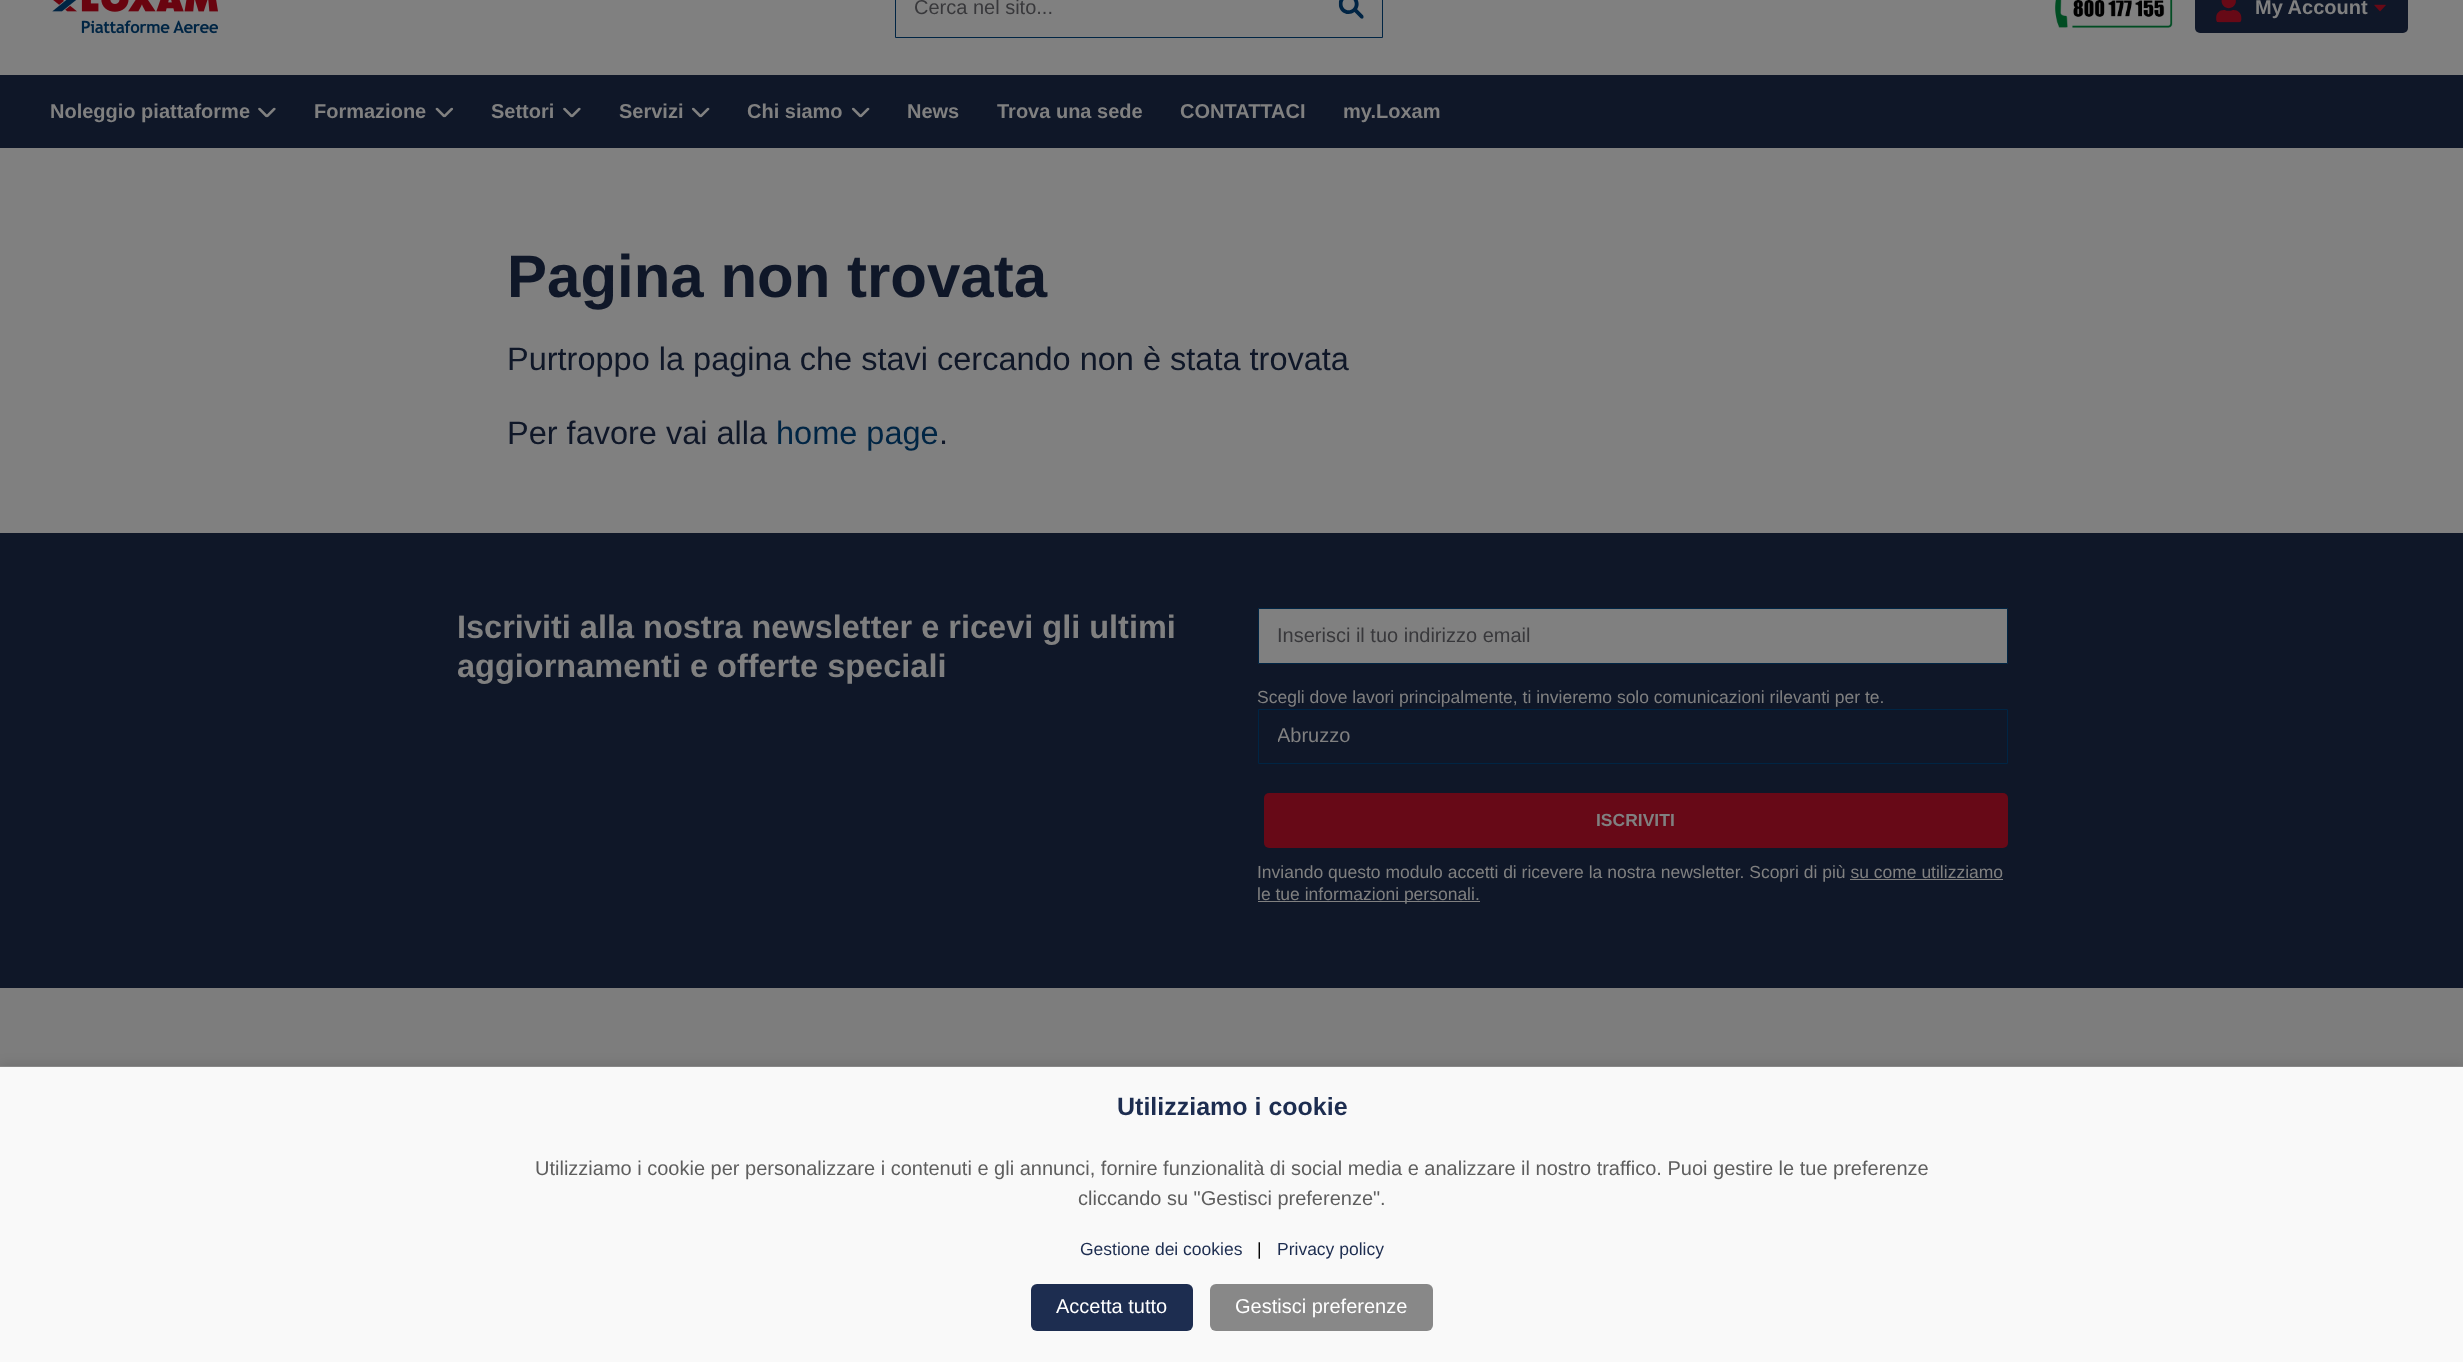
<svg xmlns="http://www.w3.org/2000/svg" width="2463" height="1362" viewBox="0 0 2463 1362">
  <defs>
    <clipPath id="clip1"><path d="M1278 725h710v23H1278z"/></clipPath>
  </defs>
  <rect width="100%" height="100%" fill="#808080"/>
  <image x="52" y="0" width="166" height="34" href="img/1.png"/>
  <path d="M895.5 -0.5h487v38H895.5z" fill="none" stroke="#002544"/>
  <image x="1338" y="0" width="26" height="19" href="img/2.png"/>
  <image x="2055" y="0" width="118" height="28" href="img/3.png"/>
  <rect x="2195" y="-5" width="213" height="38" rx="5" fill="#0f1728"/>
  <image x="2216" y="0" width="26" height="23" href="img/4.png"/>
  <image x="2374" y="4" width="12" height="8" href="img/5.png"/>
  <path d="M0 75h2463v73H0z" fill="#0f1728"/>
  <image x="258" y="107" width="18" height="11" href="img/6.png"/>
  <image x="435" y="107" width="19" height="11" href="img/7.png"/>
  <image x="563" y="107" width="18" height="11" href="img/6.png"/>
  <image x="691" y="107" width="19" height="11" href="img/8.png"/>
  <image x="851" y="107" width="19" height="11" href="img/8.png"/>
  <path d="M0 533h2463v455H0z" fill="#0f1728"/>
  <path d="M1258.5 608.5h749v55H1258.5z" fill="#808080" stroke="#002544"/>
  <path d="M1258.5 709.5h749v54H1258.5z" fill="none" stroke="#002544"/>
  <rect x="1264" y="793" width="744" height="55" rx="5" fill="#670917"/>
  <path d="M1850 879h153v1H1850z" fill="#808080"/>
  <path d="M1258 901h222v1H1258z" fill="#808080"/>
  <path d="M0 988h2463v78H0z" fill="#7d7d7d"/>
  <path d="M0 1064h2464v296H0z" fill="#0000001a" filter="blur(6px)"/>
  <path d="M0 1067h2463v295H0z" fill="#f9f9f9"/>
  <path d="M0 1066h2463v1H0z" fill="#888"/>
  <rect x="1031" y="1284" width="162" height="47" rx="6" fill="#1d2d50"/>
  <rect x="1210" y="1284" width="223" height="47" rx="6" fill="#888"/>
  <text x="914" y="14" font-family="Liberation Sans" font-size="20" fill="#38383b">Cerca nel sito...</text>
  <g font-family="Liberation Sans" font-size="20" font-weight="bold" fill="#808080">
    <text x="2255" y="14">My Account</text>
    <text x="50" y="118">Noleggio piattaforme</text>
    <text x="314" y="118">Formazione</text>
    <text x="491" y="118">Settori</text>
    <text x="619" y="118">Servizi</text>
    <text x="747" y="118">Chi siamo</text>
    <text x="907" y="118">News</text>
    <text x="997" y="118">Trova una sede</text>
    <text x="1180" y="118">CONTATTACI</text>
    <text x="1343" y="118">my.Loxam</text>
  </g>
  <text x="507" y="297" font-family="Liberation Sans" font-size="60" font-weight="bold" fill="#0f1728">Pagina non trovata</text>
  <g font-family="Liberation Sans" font-size="32.5" fill="#0f1728">
    <text x="507" y="370">Purtroppo la pagina che stavi cercando non è stata trovata</text>
    <text x="507" y="444">Per favore vai alla</text>
  </g>
  <text x="776" y="444" font-family="Liberation Sans" font-size="32.5" fill="#002544">home page</text>
  <text x="939" y="444" font-family="Liberation Sans" font-size="32.5" fill="#0f1728">.</text>
  <g font-family="Liberation Sans" font-size="32.5" font-weight="bold" fill="#808080">
    <text x="457" y="638">Iscriviti alla nostra newsletter e ricevi gli ultimi</text>
    <text x="457" y="677">aggiornamenti e offerte speciali</text>
  </g>
  <text x="1277" y="642" font-family="Liberation Sans" font-size="20" fill="#38383b">Inserisci il tuo indirizzo email</text>
  <text x="1257" y="703" font-family="Liberation Sans" font-size="17.5" fill="#808080">Scegli dove lavori principalmente, ti invieremo solo comunicazioni rilevanti per te.</text>
  <g clip-path="url(#clip1)">
    <text x="1277" y="742" font-family="Liberation Sans" font-size="20" fill="#808080">Abruzzo</text>
  </g>
  <text x="1596" y="826" font-family="Liberation Sans" font-size="17.5" font-weight="bold" fill="#808080">ISCRIVITI</text>
  <g font-family="Liberation Sans" font-size="17.5" fill="#808080">
    <text x="1257" y="878">Inviando questo modulo accetti di ricevere la nostra newsletter. Scopri di più su come utilizziamo</text>
    <text x="1257" y="900">le tue informazioni personali.</text>
  </g>
  <text x="1117" y="1115" font-family="Liberation Sans" font-size="25" font-weight="bold" fill="#1d2d50">Utilizziamo i cookie</text>
  <g font-family="Liberation Sans" font-size="20" fill="#5e5e5e">
    <text x="535" y="1175">Utilizziamo i cookie per personalizzare i contenuti e gli annunci, fornire funzionalità di social media e analizzare il nostro traffico. Puoi gestire le tue preferenze</text>
    <text x="1078" y="1205">cliccando su "Gestisci preferenze".</text>
  </g>
  <text x="1080" y="1255" font-family="Liberation Sans" font-size="17.5" fill="#1d2d50">Gestione dei cookies</text>
  <text x="1257" y="1255" font-family="Liberation Sans" font-size="17.5" fill="#000">|</text>
  <text x="1277" y="1255" font-family="Liberation Sans" font-size="17.5" fill="#1d2d50">Privacy policy</text>
  <g font-family="Liberation Sans" font-size="20" fill="#fff">
    <text x="1056" y="1313">Accetta tutto</text>
    <text x="1235" y="1313">Gestisci preferenze</text>
  </g>
</svg>
